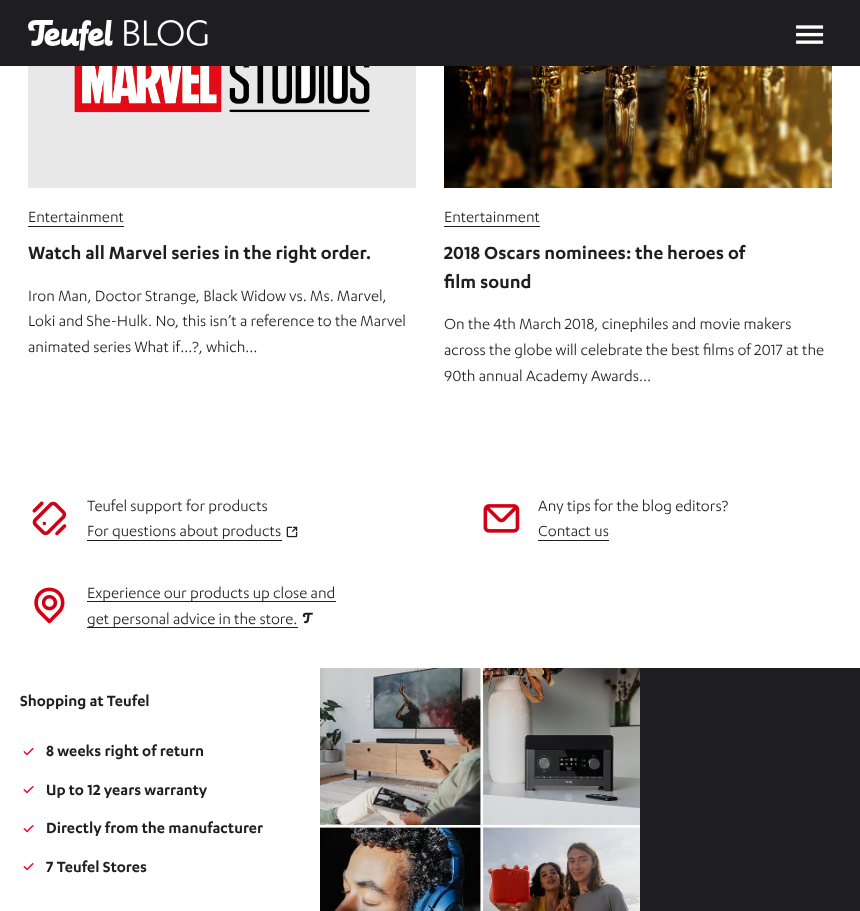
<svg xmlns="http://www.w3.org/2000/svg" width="860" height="911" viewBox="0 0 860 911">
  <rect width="100%" height="100%" fill="#1e1e20"/>
  <image x="28" y="20" width="180" height="31" href="img/1.png"/>
  <image x="796" y="25" width="28" height="19" href="img/2.png"/>
  <path d="M0 66h860v602H0z" fill="#fff"/>
  <image x="28" y="66" width="388" height="122" href="img/3.png"/>
  <path d="M28 226h96v1H28z" fill="#1e1e20"/>
  <image x="444" y="66" width="388" height="122" href="img/4.png"/>
  <path d="M444 226h96v1H444z" fill="#1e1e20"/>
  <image x="32" y="501" width="35" height="35" href="img/5.png"/>
  <path d="M87 540h195v1H87z" fill="#1e1e20"/>
  <image x="286" y="526" width="12" height="12" href="img/6.png"/>
  <image x="483" y="504" width="37" height="29" href="img/7.png"/>
  <path d="M538 540h71v1H538z" fill="#1e1e20"/>
  <image x="34" y="587" width="31" height="37" href="img/8.png"/>
  <path d="M87 601h249v1H87z" fill="#1e1e20"/>
  <path d="M87 627h211v1H87z" fill="#1e1e20"/>
  <image x="302" y="612" width="11" height="12" href="img/9.png"/>
  <path d="M0 668h320v243H0z" fill="#fff"/>
  <image x="23" y="748" width="11" height="8" href="img/10.png"/>
  <image x="23" y="786" width="11" height="8" href="img/10.png"/>
  <image x="23" y="825" width="11" height="8" href="img/10.png"/>
  <image x="23" y="863" width="11" height="8" href="img/10.png"/>
  <image x="320" y="668" width="320" height="243" href="img/11.png"/>
  <text x="28" y="222" font-family="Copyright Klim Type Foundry" font-size="17.1" fill="#1e1e20">Entertainment</text>
  <text x="28" y="259" font-family="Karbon" font-size="20.5" font-weight="600" fill="#1e1e20">Watch all Marvel series in the right order.</text>
  <g font-family="Copyright Klim Type Foundry" font-size="17.1" fill="#1e1e20">
    <text x="28" y="301">Iron Man, Doctor Strange, Black Widow vs. Ms. Marvel,</text>
    <text x="28" y="326">Loki and She-Hulk. No, this isn’t a reference to the Marvel</text>
    <text x="28" y="352">animated series What if…?, which…</text>
    <text x="444" y="222">Entertainment</text>
  </g>
  <g font-family="Karbon" font-size="20.5" font-weight="600" fill="#1e1e20">
    <text x="444" y="259">2018 Oscars nominees: the heroes of</text>
    <text x="444" y="288">film sound</text>
  </g>
  <g font-family="Copyright Klim Type Foundry" font-size="17.1" fill="#1e1e20">
    <text x="444" y="329">On the 4th March 2018, cinephiles and movie makers</text>
    <text x="444" y="355">across the globe will celebrate the best films of 2017 at the</text>
    <text x="444" y="381">90th annual Academy Awards…</text>
    <text x="87" y="511">Teufel support for products</text>
    <text x="87" y="536">For questions about products</text>
    <text x="538" y="511">Any tips for the blog editors?</text>
    <text x="538" y="536">Contact us</text>
    <text x="87" y="598">Experience our products up close and</text>
    <text x="87" y="624">get personal advice in the store.</text>
  </g>
  <g font-family="Karbon" font-size="17.1" font-weight="600" fill="#1e1e20">
    <text x="20" y="706">Shopping at Teufel</text>
    <text x="46" y="756">8 weeks right of return</text>
    <text x="46" y="795">Up to 12 years warranty</text>
    <text x="46" y="833">Directly from the manufacturer</text>
    <text x="46" y="872">7 Teufel Stores</text>
  </g>
</svg>
